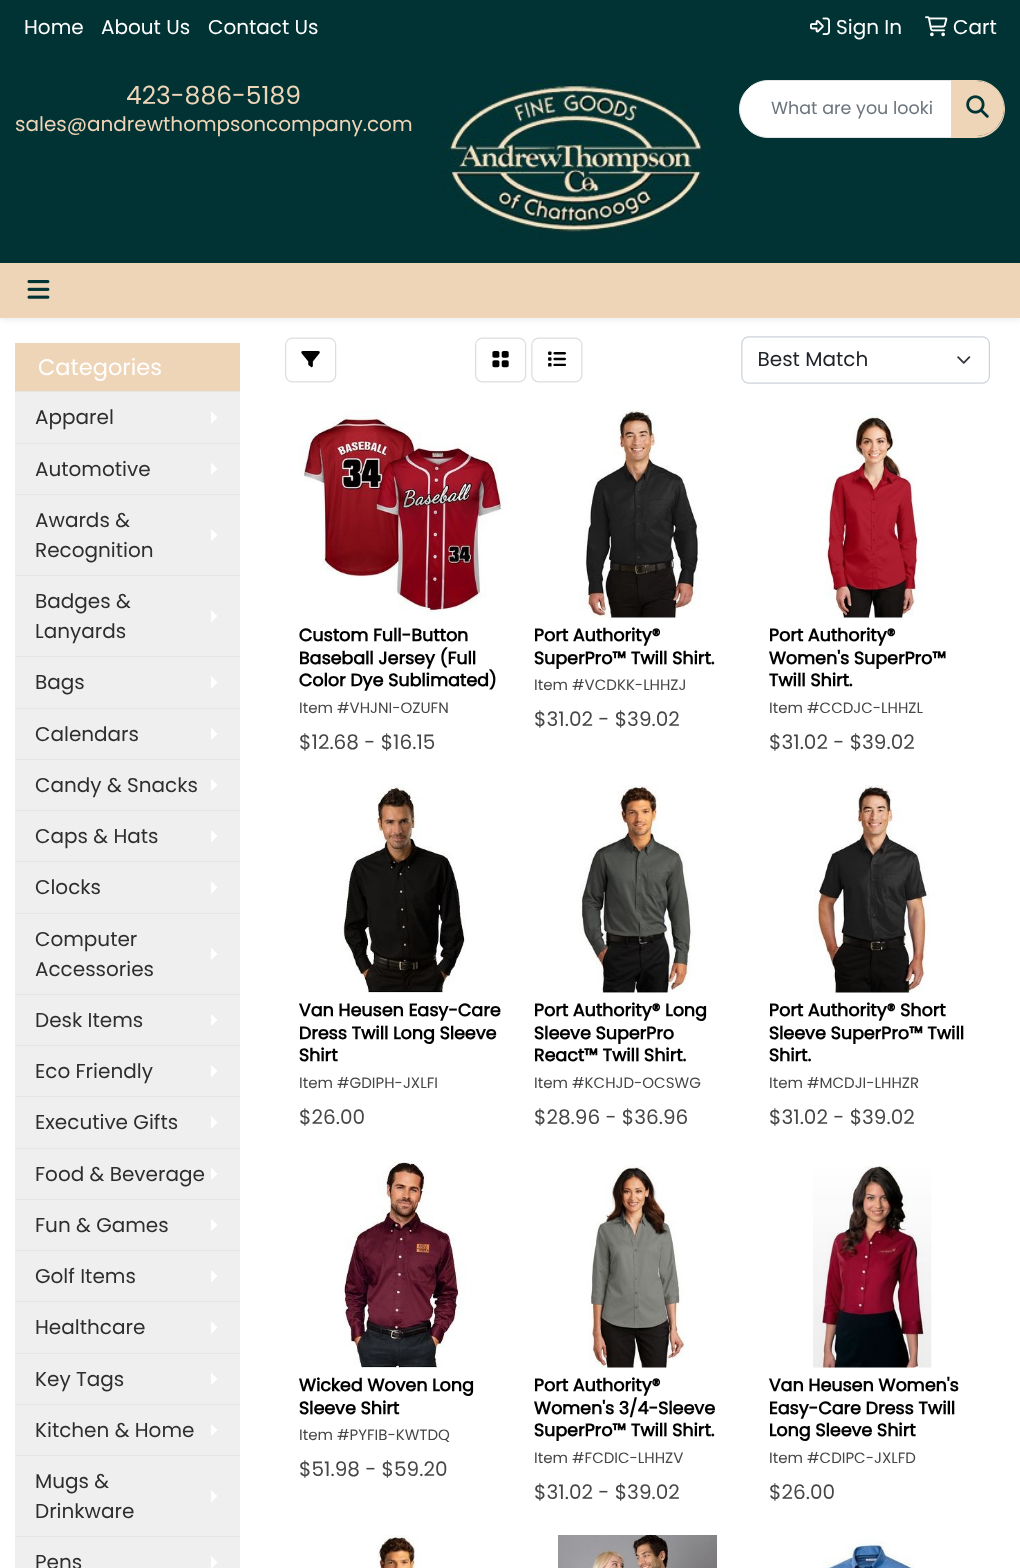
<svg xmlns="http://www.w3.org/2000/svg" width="1020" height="1568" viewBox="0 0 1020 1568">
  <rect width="100%" height="100%" fill="#fff"/>
  <path d="M0 0h1020v263H0z" fill="#013334"/>
  <image x="810" y="17" width="20" height="18" href="img/1.png"/>
  <image x="925" y="16" width="23" height="21" href="img/2.png"/>
  <image x="442" y="80" width="267" height="155" href="img/3.png"/>
  <path d="M768 80.5H952.5V137.5H768C752.5 137.5 739.5 124.5 739.5 109C739.5 93.5 752.5 80.5 768 80.5Z" fill="#fff" stroke="#e4e4e4"/>
  <path d="M951 81H976.5C991.5 81 1004 93.5 1004 108.5C1004 123.5 991.5 136 976.5 136H951Z" fill="#eed5b7"/>
  <path d="M951 80H976C992 80 1005 93 1005 109C1005 125 992 138 976 138H951ZM951 81H976C991 81 1004 94 1004 109C1004 124 991 136 976 136H951Z" fill="#eed5b7" fill-rule="evenodd"/>
  <image x="966" y="95" width="23" height="23" href="img/4.png"/>
  <path d="M0 265h1020v55H0z" fill="#00000012" filter="blur(2.5px)"/>
  <path d="M0 263h1020v55H0z" fill="#eed5b7"/>
  <image x="27" y="280" width="23" height="19" href="img/5.png"/>
  <path d="M15 343h225v48H15z" fill="#eed5b7"/>
  <path d="M15 392h225v51H15z" fill="#efefef"/>
  <path d="M15 391h225v1H15z" fill="#e5e5e5"/>
  <path d="M211 424V411L217.5 417.5Z" fill="#fff"/>
  <path d="M15 444h225v50H15z" fill="#efefef"/>
  <path d="M15 443h225v1H15z" fill="#e5e5e5"/>
  <path d="M211 475V462.5L217.5 469Z" fill="#fff"/>
  <path d="M15 495h225v80H15z" fill="#efefef"/>
  <path d="M15 494h225v1H15z" fill="#e5e5e5"/>
  <path d="M211 541V529L217.5 535Z" fill="#fff"/>
  <path d="M15 576h225v80H15z" fill="#efefef"/>
  <path d="M15 575h225v1H15z" fill="#e5e5e5"/>
  <path d="M211 622.5V610L217.5 616Z" fill="#fff"/>
  <path d="M15 657h225v51H15z" fill="#efefef"/>
  <path d="M15 656h225v1H15z" fill="#e5e5e5"/>
  <path d="M211 689V676L217.5 682.5Z" fill="#fff"/>
  <path d="M15 709h225v50H15z" fill="#efefef"/>
  <path d="M15 708h225v1H15z" fill="#e5e5e5"/>
  <path d="M211 740V727.5L217.5 734Z" fill="#fff"/>
  <path d="M15 760h225v50H15z" fill="#efefef"/>
  <path d="M15 759h225v1H15z" fill="#e5e5e5"/>
  <path d="M211 791V779L217.5 785Z" fill="#fff"/>
  <path d="M15 811h225v50H15z" fill="#efefef"/>
  <path d="M15 810h225v1H15z" fill="#e5e5e5"/>
  <path d="M211 842.5V830L217.5 836Z" fill="#fff"/>
  <path d="M15 862h225v51H15z" fill="#efefef"/>
  <path d="M15 861h225v1H15z" fill="#e5e5e5"/>
  <path d="M211 894V881L217.5 887.5Z" fill="#fff"/>
  <path d="M15 914h225v80H15z" fill="#efefef"/>
  <path d="M15 913h225v1H15z" fill="#e5e5e5"/>
  <path d="M211 960V947.5L217.5 954Z" fill="#fff"/>
  <path d="M15 995h225v50H15z" fill="#efefef"/>
  <path d="M15 994h225v1H15z" fill="#e5e5e5"/>
  <path d="M211 1026V1014L217.5 1020Z" fill="#fff"/>
  <path d="M15 1046h225v50H15z" fill="#efefef"/>
  <path d="M15 1045h225v1H15z" fill="#e5e5e5"/>
  <path d="M211 1077.5V1065L217.5 1071Z" fill="#fff"/>
  <path d="M15 1097h225v51H15z" fill="#efefef"/>
  <path d="M15 1096h225v1H15z" fill="#e5e5e5"/>
  <path d="M211 1129V1116L217.5 1122.5Z" fill="#fff"/>
  <path d="M15 1149h225v50H15z" fill="#efefef"/>
  <path d="M15 1148h225v1H15z" fill="#e5e5e5"/>
  <path d="M211 1180V1167.5L217.5 1174Z" fill="#fff"/>
  <path d="M15 1200h225v50H15z" fill="#efefef"/>
  <path d="M15 1199h225v1H15z" fill="#e5e5e5"/>
  <path d="M211 1231V1219L217.5 1225Z" fill="#fff"/>
  <path d="M15 1251h225v50H15z" fill="#efefef"/>
  <path d="M15 1250h225v1H15z" fill="#e5e5e5"/>
  <path d="M211 1282.5V1270L217.5 1276Z" fill="#fff"/>
  <path d="M15 1302h225v51H15z" fill="#efefef"/>
  <path d="M15 1301h225v1H15z" fill="#e5e5e5"/>
  <path d="M211 1334V1321L217.5 1327.5Z" fill="#fff"/>
  <path d="M15 1354h225v50H15z" fill="#efefef"/>
  <path d="M15 1353h225v1H15z" fill="#e5e5e5"/>
  <path d="M211 1385V1372.5L217.5 1379Z" fill="#fff"/>
  <path d="M15 1405h225v50H15z" fill="#efefef"/>
  <path d="M15 1404h225v1H15z" fill="#e5e5e5"/>
  <path d="M211 1436V1424L217.5 1430Z" fill="#fff"/>
  <path d="M15 1456h225v80H15z" fill="#efefef"/>
  <path d="M15 1455h225v1H15z" fill="#e5e5e5"/>
  <path d="M211 1502.5V1490L217.5 1496Z" fill="#fff"/>
  <path d="M15 1537h225v31H15z" fill="#efefef"/>
  <path d="M15 1536h225v1H15z" fill="#e5e5e5"/>
  <path d="M211 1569V1556L217.5 1562.5Z" fill="#fff"/>
  <image x="285" y="336" width="705" height="1232" href="img/6.png"/>
  <g font-family="Poppins" font-size="20" fill="#fff">
    <text x="24" y="34">Home</text>
    <text x="101" y="34">About Us</text>
    <text x="208" y="34">Contact Us</text>
    <text x="836" y="34">Sign In</text>
    <text x="953" y="34">Cart</text>
  </g>
  <text x="126" y="104" font-family="Poppins" font-size="25" fill="#eed5b7">423-886-5189</text>
  <text x="15" y="131" font-family="Poppins" font-size="20" fill="#eed5b7">sales@andrewthompsoncompany.com</text>
  <text x="771" y="114" font-family="Poppins" font-size="17.5" fill="#6c757d">What are you looki</text>
  <text x="38" y="375" font-family="Poppins" font-size="22.5" fill="#fff">Categories</text>
  <g font-family="Poppins" font-size="20" fill="#2e2e2e">
    <text x="35" y="424">Apparel</text>
    <text x="35" y="476">Automotive</text>
    <text x="35" y="527">Awards &amp;</text>
    <text x="35" y="557">Recognition</text>
    <text x="35" y="608">Badges &amp;</text>
    <text x="35" y="638">Lanyards</text>
    <text x="35" y="689">Bags</text>
    <text x="35" y="741">Calendars</text>
    <text x="35" y="792">Candy &amp; Snacks</text>
    <text x="35" y="843">Caps &amp; Hats</text>
    <text x="35" y="894">Clocks</text>
    <text x="35" y="946">Computer</text>
    <text x="35" y="976">Accessories</text>
    <text x="35" y="1027">Desk Items</text>
    <text x="35" y="1078">Eco Friendly</text>
    <text x="35" y="1129">Executive Gifts</text>
    <text x="35" y="1181">Food &amp; Beverage</text>
    <text x="35" y="1232">Fun &amp; Games</text>
    <text x="35" y="1283">Golf Items</text>
    <text x="35" y="1334">Healthcare</text>
    <text x="35" y="1386">Key Tags</text>
    <text x="35" y="1437">Kitchen &amp; Home</text>
    <text x="35" y="1488">Mugs &amp;</text>
    <text x="35" y="1518">Drinkware</text>
    <text x="35" y="1569">Pens</text>
  </g>
</svg>
